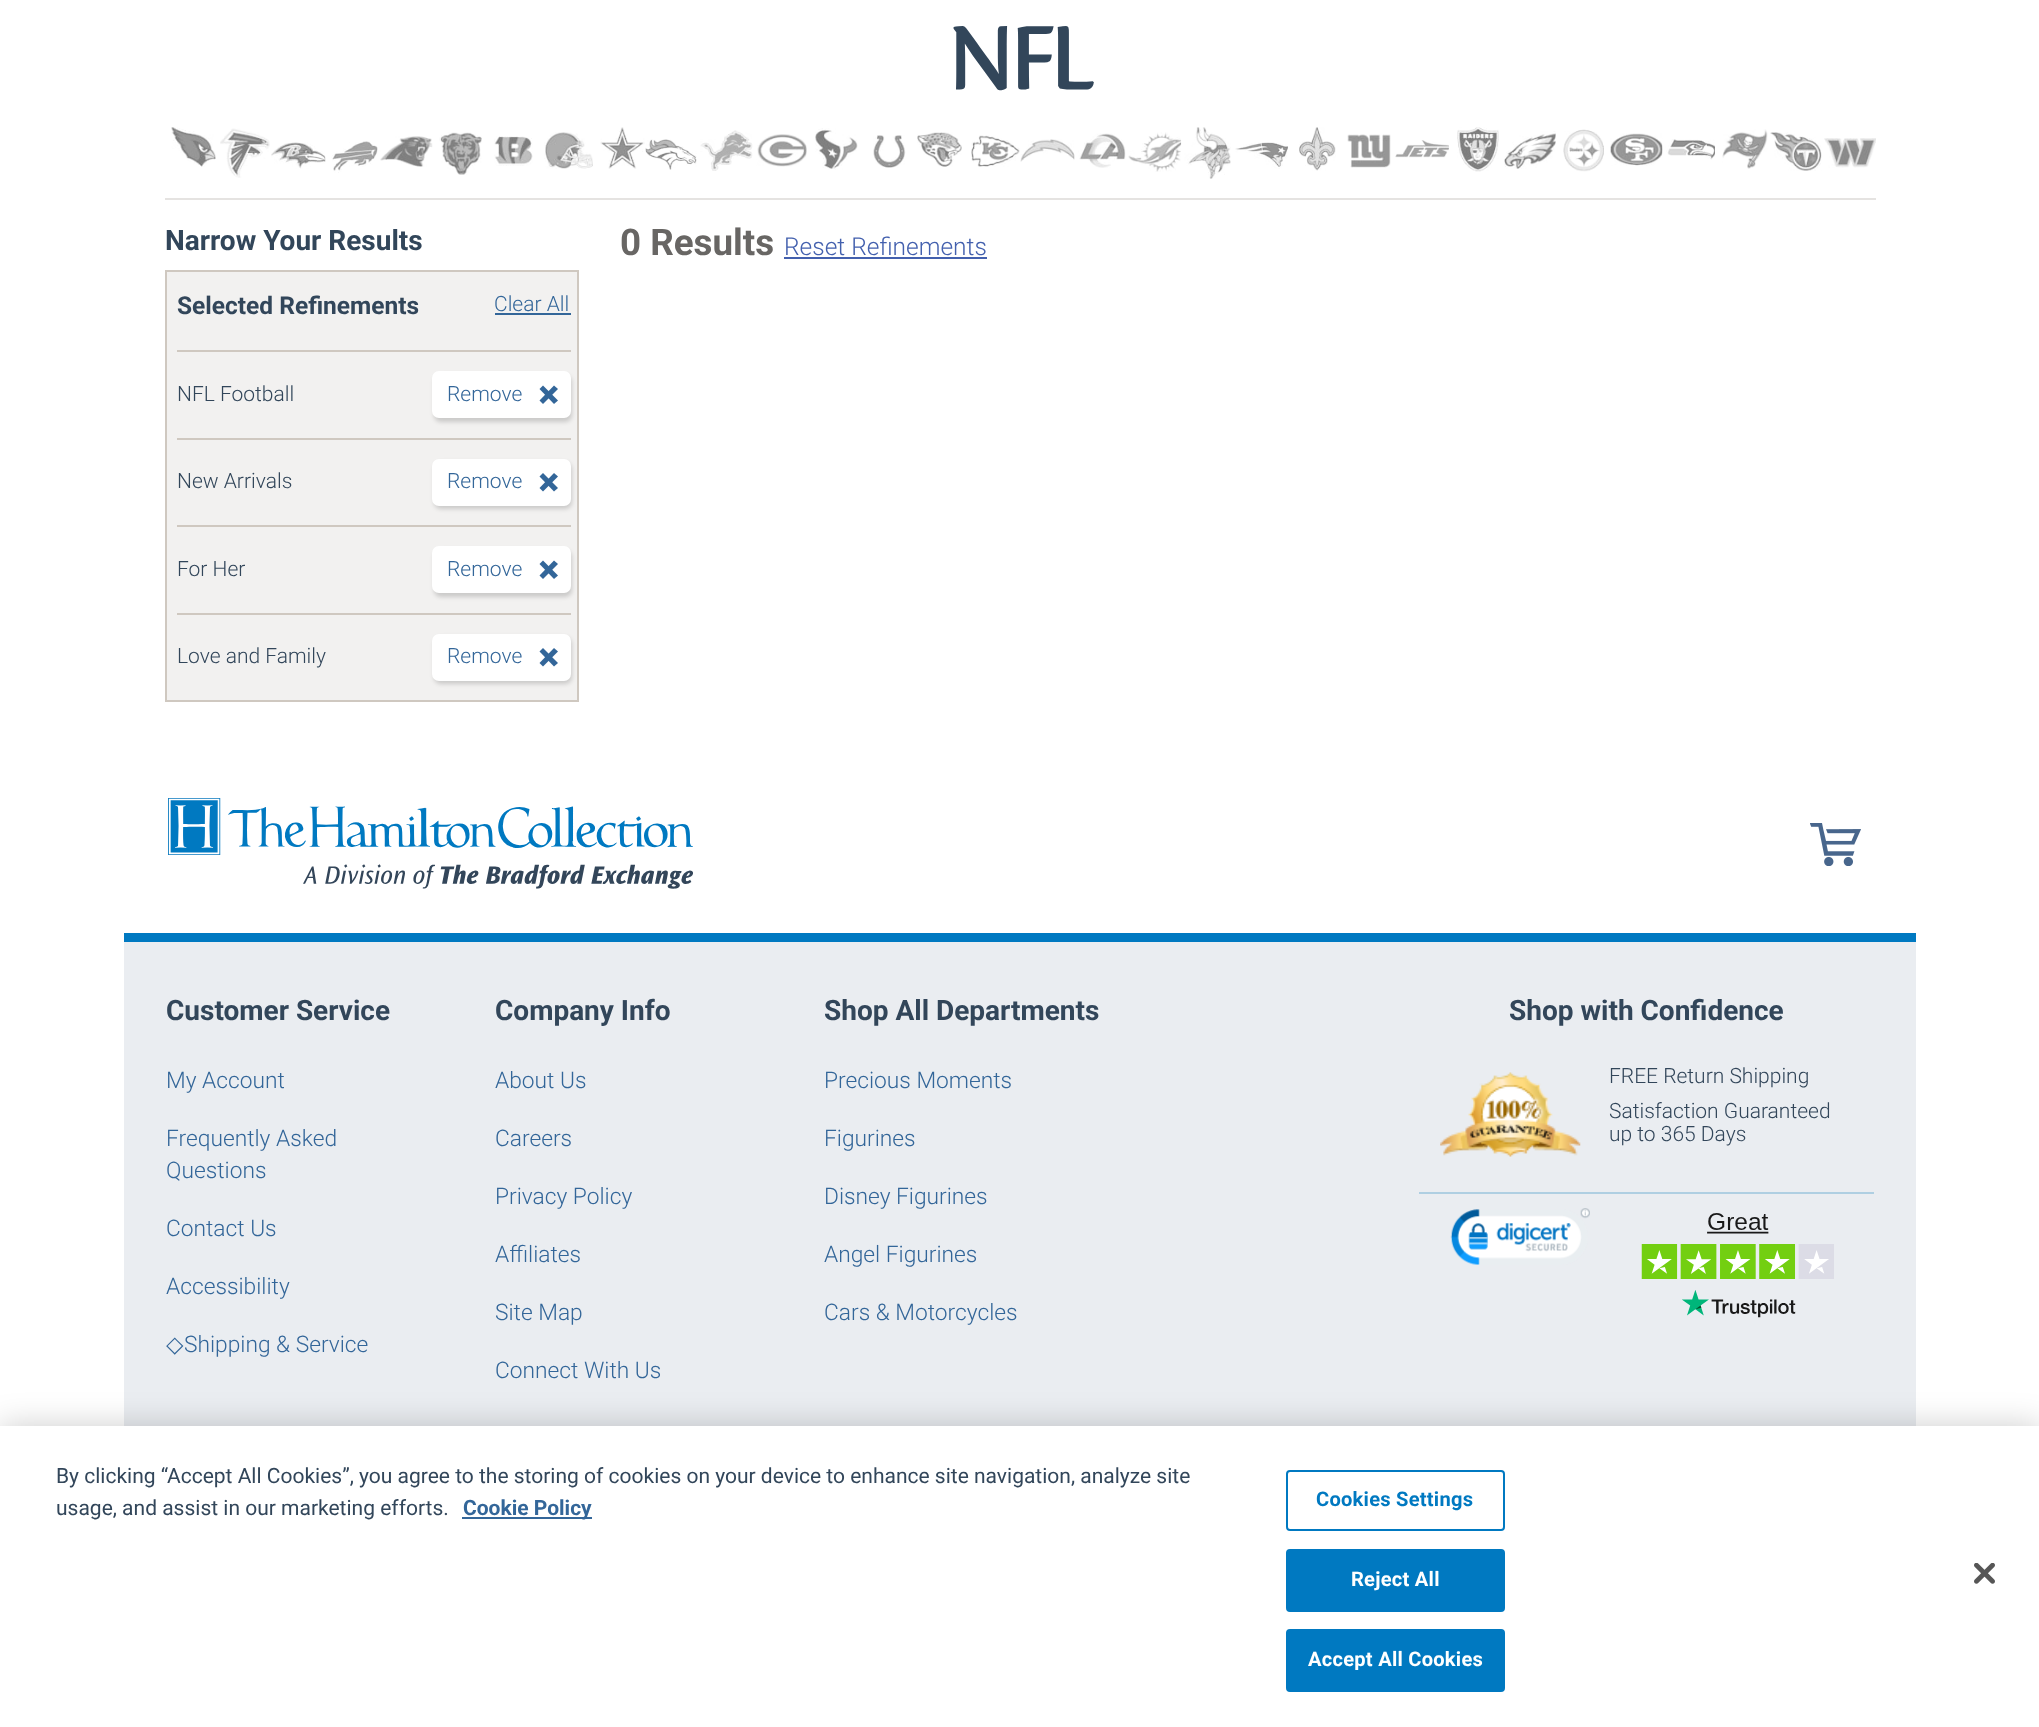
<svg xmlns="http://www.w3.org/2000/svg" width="2039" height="1727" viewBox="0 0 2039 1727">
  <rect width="100%" height="100%" fill="#fff"/>
  <image x="171" y="127" width="45" height="40" href="img/1.png"/>
  <image x="220" y="128" width="50" height="50" href="img/2.png"/>
  <image x="271" y="142" width="55" height="27" href="img/3.png"/>
  <image x="325" y="141" width="53" height="32" href="img/4.png"/>
  <image x="380" y="136" width="53" height="31" href="img/5.png"/>
  <image x="439" y="132" width="43" height="43" href="img/6.png"/>
  <image x="494" y="136" width="39" height="30" href="img/7.png"/>
  <image x="544" y="132" width="49" height="37" href="img/8.png"/>
  <image x="600" y="127" width="45" height="42" href="img/9.png"/>
  <image x="645" y="139" width="52" height="31" href="img/10.png"/>
  <image x="700" y="130" width="53" height="41" href="img/11.png"/>
  <image x="752" y="134" width="55" height="33" href="img/12.png"/>
  <image x="806" y="128" width="52" height="42" href="img/13.png"/>
  <image x="873" y="135" width="33" height="33" href="img/14.png"/>
  <image x="917" y="132" width="45" height="35" href="img/15.png"/>
  <image x="971" y="135" width="49" height="32" href="img/16.png"/>
  <image x="1020" y="139" width="55" height="23" href="img/17.png"/>
  <image x="1074" y="133" width="52" height="35" href="img/18.png"/>
  <image x="1128" y="132" width="54" height="40" href="img/19.png"/>
  <image x="1181" y="127" width="50" height="52" href="img/20.png"/>
  <image x="1235" y="142" width="53" height="27" href="img/21.png"/>
  <image x="1299" y="127" width="37" height="44" href="img/22.png"/>
  <image x="1347" y="134" width="44" height="34" href="img/23.png"/>
  <image x="1395" y="140" width="54" height="18" href="img/24.png"/>
  <image x="1457" y="127" width="42" height="45" href="img/25.png"/>
  <image x="1504" y="131" width="52" height="38" href="img/26.png"/>
  <image x="1555" y="129" width="49" height="43" href="img/27.png"/>
  <image x="1610" y="133" width="53" height="33" href="img/28.png"/>
  <image x="1662" y="139" width="53" height="21" href="img/29.png"/>
  <image x="1722" y="129" width="46" height="40" href="img/30.png"/>
  <image x="1770" y="132" width="52" height="39" href="img/31.png"/>
  <image x="1824" y="138" width="52" height="30" href="img/32.png"/>
  <path d="M165 198h1711v2H165z" fill="#e5e3e1"/>
  <path d="M166 271h412v430H166z" fill="#f2f1f0" stroke="#cfc8c0" stroke-width="2"/>
  <path d="M495 313h76v2H495z" fill="#369"/>
  <path d="M177 350h394v2H177z" fill="#cfc8c0"/>
  <rect x="434" y="375" width="138" height="47" rx="7" fill="#00000029" filter="blur(2px)"/>
  <rect x="432" y="371" width="139" height="47" rx="7" fill="#fff"/>
  <path d="M543 385.5L558 400.5L554 404L539.5 389Z" fill="#369"/>
  <path d="M558 389L543 404L539.5 400.5L554 385.5Z" fill="#369"/>
  <path d="M177 438h394v2H177z" fill="#cfc8c0"/>
  <rect x="434" y="462" width="138" height="47" rx="7" fill="#00000029" filter="blur(2px)"/>
  <rect x="432" y="459" width="139" height="47" rx="7" fill="#fff"/>
  <path d="M543 473L558 488L554 491.5L539.5 476.5Z" fill="#369"/>
  <path d="M558 476.5L543 491.5L539.5 488L554 473Z" fill="#369"/>
  <path d="M177 525h394v2H177z" fill="#cfc8c0"/>
  <rect x="434" y="550" width="138" height="47" rx="7" fill="#00000029" filter="blur(2px)"/>
  <rect x="432" y="546" width="139" height="47" rx="7" fill="#fff"/>
  <path d="M543 560.5L558 575.5L554 579L539.5 564Z" fill="#369"/>
  <path d="M558 564L543 579L539.5 575.5L554 560.5Z" fill="#369"/>
  <path d="M177 613h394v2H177z" fill="#cfc8c0"/>
  <rect x="434" y="637" width="138" height="47" rx="7" fill="#00000029" filter="blur(2px)"/>
  <rect x="432" y="634" width="139" height="47" rx="7" fill="#fff"/>
  <path d="M543 648L558 663L554 666.5L539.5 651.5Z" fill="#369"/>
  <path d="M558 651.5L543 666.5L539.5 663L554 648Z" fill="#369"/>
  <path d="M784 257h203v2H784z" fill="#4360ae"/>
  <image x="168" y="798" width="525" height="91" href="img/33.png"/>
  <image x="1810" y="823" width="51" height="43" href="img/34.png"/>
  <path d="M124 942h1792v484H124z" fill="#eaedf1"/>
  <path d="M124 933h1792v9H124z" fill="#0079c1"/>
  <path d="M1419 1192h455v2H1419z" fill="#afcfe2"/>
  <image x="1440" y="1072" width="141" height="85" href="img/35.png"/>
  <image x="1450" y="1208" width="140" height="57" href="img/36.png"/>
  <image x="1641" y="1213" width="193" height="105" href="img/37.png"/>
  <path d="M0 1426h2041v301H0z" fill="#00000033" filter="blur(16px)"/>
  <path d="M0 1426h2039v301H0z" fill="#fff"/>
  <path d="M462 1517h130v2H462z" fill="#369"/>
  <rect x="1287" y="1471" width="217" height="59" rx="3" fill="none" stroke="#0079c1" stroke-width="2"/>
  <rect x="1287" y="1550" width="217" height="61" rx="3" fill="#0079c1" stroke="#0079c1" stroke-width="2"/>
  <rect x="1287" y="1630" width="217" height="61" rx="3" fill="#0079c1" stroke="#0079c1" stroke-width="2"/>
  <image x="1974" y="1563" width="21" height="21" href="img/38.png"/>
  <text x="949" y="89" font-family="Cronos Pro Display" font-size="96" font-weight="bold" fill="#32465a">NFL</text>
  <text x="165" y="250" font-family="Roboto" font-size="28" font-weight="bold" fill="#32465a">Narrow Your Results</text>
  <text x="177" y="314" font-family="Roboto" font-size="24.5" font-weight="bold" fill="#32465a">Selected Refinements</text>
  <text x="494" y="311" font-family="Roboto" font-size="21" font-weight="300" fill="#369">Clear All</text>
  <text x="177" y="401" font-family="Roboto" font-size="21" font-weight="300" fill="#32465a">NFL Football</text>
  <text x="447" y="401" font-family="Roboto" font-size="21" font-weight="300" fill="#369">Remove</text>
  <text x="177" y="488" font-family="Roboto" font-size="21" font-weight="300" fill="#32465a">New Arrivals</text>
  <text x="447" y="488" font-family="Roboto" font-size="21" font-weight="300" fill="#369">Remove</text>
  <text x="177" y="576" font-family="Roboto" font-size="21" font-weight="300" fill="#32465a">For Her</text>
  <text x="447" y="576" font-family="Roboto" font-size="21" font-weight="300" fill="#369">Remove</text>
  <text x="177" y="663" font-family="Roboto" font-size="21" font-weight="300" fill="#32465a">Love and Family</text>
  <text x="447" y="663" font-family="Roboto" font-size="21" font-weight="300" fill="#369">Remove</text>
  <text x="620" y="255" font-family="Roboto" font-size="36.75" font-weight="bold" fill="#686664">0 Results</text>
  <text x="784" y="255" font-family="Roboto" font-size="24.5" font-weight="300" fill="#4360ae">Reset Refinements</text>
  <text x="166" y="1020" font-family="Roboto" font-size="28" font-weight="bold" fill="#32465a">Customer Service</text>
  <g font-family="Roboto" font-size="22.75" font-weight="300" fill="#369">
    <text x="166" y="1088">My Account</text>
    <text x="166" y="1146">Frequently Asked</text>
    <text x="166" y="1178">Questions</text>
    <text x="166" y="1236">Contact Us</text>
    <text x="166" y="1294">Accessibility</text>
  </g>
  <text x="166" y="1352" font-family="DejaVu Sans" font-size="22.75" fill="#369">◇</text>
  <text x="184" y="1352" font-family="Roboto" font-size="22.75" font-weight="300" fill="#369">Shipping &amp; Service</text>
  <text x="495" y="1020" font-family="Roboto" font-size="28" font-weight="bold" fill="#32465a">Company Info</text>
  <g font-family="Roboto" font-size="22.75" font-weight="300" fill="#369">
    <text x="495" y="1088">About Us</text>
    <text x="495" y="1146">Careers</text>
    <text x="495" y="1204">Privacy Policy</text>
    <text x="495" y="1262">Affiliates</text>
    <text x="495" y="1320">Site Map</text>
    <text x="495" y="1378">Connect With Us</text>
  </g>
  <text x="824" y="1020" font-family="Roboto" font-size="28" font-weight="bold" fill="#32465a">Shop All Departments</text>
  <g font-family="Roboto" font-size="22.75" font-weight="300" fill="#369">
    <text x="824" y="1088">Precious Moments</text>
    <text x="824" y="1146">Figurines</text>
    <text x="824" y="1204">Disney Figurines</text>
    <text x="824" y="1262">Angel Figurines</text>
    <text x="824" y="1320">Cars &amp; Motorcycles</text>
  </g>
  <text x="1509" y="1020" font-family="Roboto" font-size="28" font-weight="bold" fill="#32465a">Shop with Confidence</text>
  <g font-family="Roboto" font-size="21" font-weight="300" fill="#32465a">
    <text x="1609" y="1083">FREE Return Shipping</text>
    <text x="1609" y="1118">Satisfaction Guaranteed</text>
    <text x="1609" y="1141">up to 365 Days</text>
  </g>
  <g font-family="Roboto" font-size="21" fill="#32465a">
    <text x="56" y="1483">By clicking “Accept All Cookies”, you agree to the storing of cookies on your device to enhance site navigation, analyze site</text>
    <text x="56" y="1515">usage, and assist in our marketing efforts.</text>
  </g>
  <text x="463" y="1515" font-family="Roboto" font-size="21" font-weight="bold" fill="#369">Cookie Policy</text>
  <text x="1316" y="1506" font-family="Roboto" font-size="20.1" font-weight="bold" letter-spacing="0.25" fill="#0079c1">Cookies Settings</text>
  <g font-family="Roboto" font-size="20.1" font-weight="bold" letter-spacing="0.25" fill="#fff">
    <text x="1351" y="1586">Reject All</text>
    <text x="1308" y="1666">Accept All Cookies</text>
  </g>
</svg>
